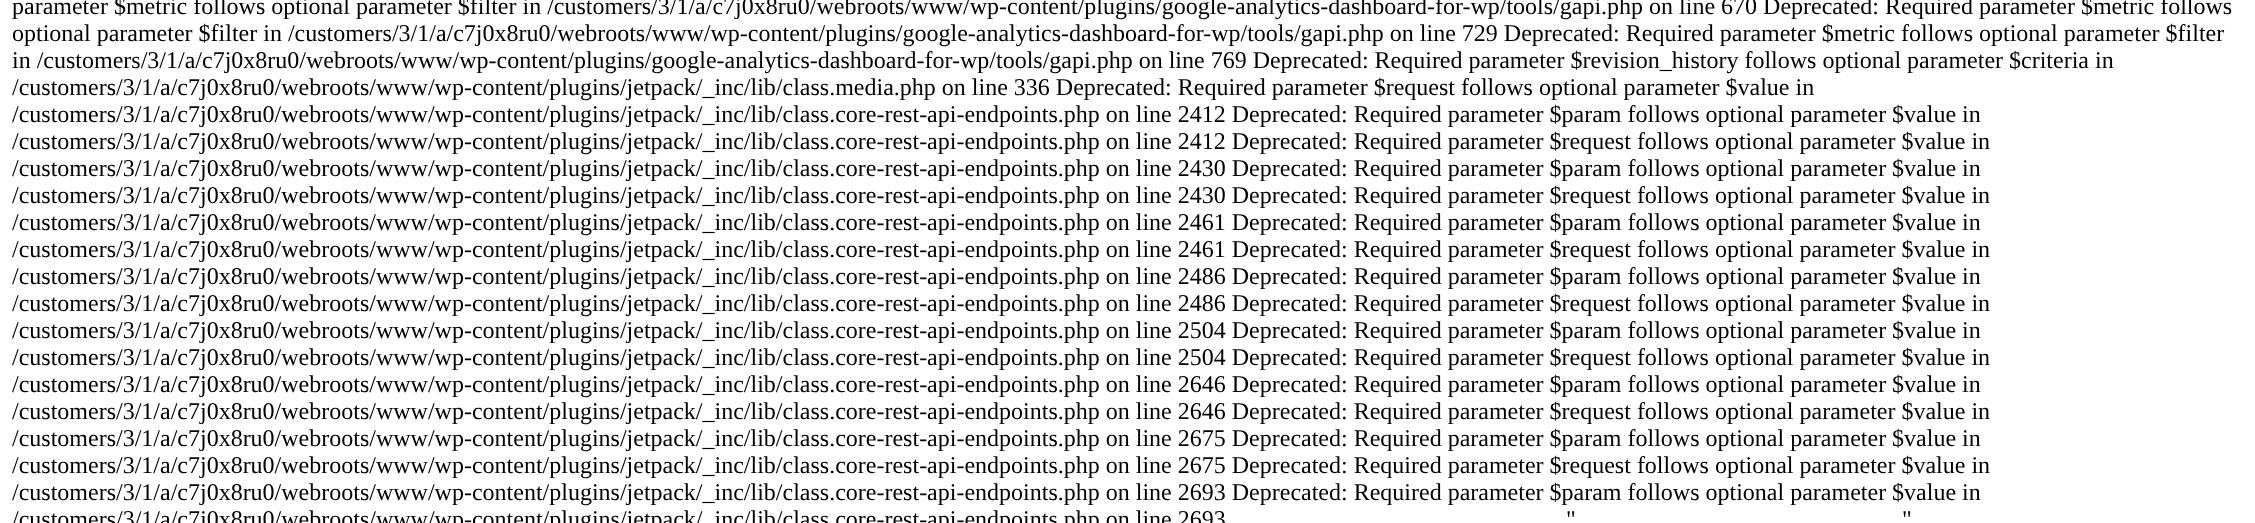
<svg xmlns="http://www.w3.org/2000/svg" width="2255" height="523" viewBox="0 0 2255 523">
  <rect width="100%" height="100%" fill="#fff"/>
  <g font-family="Liberation Serif" font-size="24" fill="#000">
    <text x="12" y="14">parameter $metric follows optional parameter $filter in /customers/3/1/a/c7j0x8ru0/webroots/www/wp-content/plugins/google-analytics-dashboard-for-wp/tools/gapi.php on line 670 Deprecated: Required parameter $metric follows</text>
    <text x="12" y="41">optional parameter $filter in /customers/3/1/a/c7j0x8ru0/webroots/www/wp-content/plugins/google-analytics-dashboard-for-wp/tools/gapi.php on line 729 Deprecated: Required parameter $metric follows optional parameter $filter</text>
    <text x="12" y="68">in /customers/3/1/a/c7j0x8ru0/webroots/www/wp-content/plugins/google-analytics-dashboard-for-wp/tools/gapi.php on line 769 Deprecated: Required parameter $revision_history follows optional parameter $criteria in</text>
    <text x="12" y="95">/customers/3/1/a/c7j0x8ru0/webroots/www/wp-content/plugins/jetpack/_inc/lib/class.media.php on line 336 Deprecated: Required parameter $request follows optional parameter $value in</text>
    <text x="12" y="122">/customers/3/1/a/c7j0x8ru0/webroots/www/wp-content/plugins/jetpack/_inc/lib/class.core-rest-api-endpoints.php on line 2412 Deprecated: Required parameter $param follows optional parameter $value in</text>
    <text x="12" y="149">/customers/3/1/a/c7j0x8ru0/webroots/www/wp-content/plugins/jetpack/_inc/lib/class.core-rest-api-endpoints.php on line 2412 Deprecated: Required parameter $request follows optional parameter $value in</text>
    <text x="12" y="176">/customers/3/1/a/c7j0x8ru0/webroots/www/wp-content/plugins/jetpack/_inc/lib/class.core-rest-api-endpoints.php on line 2430 Deprecated: Required parameter $param follows optional parameter $value in</text>
    <text x="12" y="203">/customers/3/1/a/c7j0x8ru0/webroots/www/wp-content/plugins/jetpack/_inc/lib/class.core-rest-api-endpoints.php on line 2430 Deprecated: Required parameter $request follows optional parameter $value in</text>
    <text x="12" y="230">/customers/3/1/a/c7j0x8ru0/webroots/www/wp-content/plugins/jetpack/_inc/lib/class.core-rest-api-endpoints.php on line 2461 Deprecated: Required parameter $param follows optional parameter $value in</text>
    <text x="12" y="257">/customers/3/1/a/c7j0x8ru0/webroots/www/wp-content/plugins/jetpack/_inc/lib/class.core-rest-api-endpoints.php on line 2461 Deprecated: Required parameter $request follows optional parameter $value in</text>
    <text x="12" y="284">/customers/3/1/a/c7j0x8ru0/webroots/www/wp-content/plugins/jetpack/_inc/lib/class.core-rest-api-endpoints.php on line 2486 Deprecated: Required parameter $param follows optional parameter $value in</text>
    <text x="12" y="311">/customers/3/1/a/c7j0x8ru0/webroots/www/wp-content/plugins/jetpack/_inc/lib/class.core-rest-api-endpoints.php on line 2486 Deprecated: Required parameter $request follows optional parameter $value in</text>
    <text x="12" y="338">/customers/3/1/a/c7j0x8ru0/webroots/www/wp-content/plugins/jetpack/_inc/lib/class.core-rest-api-endpoints.php on line 2504 Deprecated: Required parameter $param follows optional parameter $value in</text>
    <text x="12" y="365">/customers/3/1/a/c7j0x8ru0/webroots/www/wp-content/plugins/jetpack/_inc/lib/class.core-rest-api-endpoints.php on line 2504 Deprecated: Required parameter $request follows optional parameter $value in</text>
    <text x="12" y="392">/customers/3/1/a/c7j0x8ru0/webroots/www/wp-content/plugins/jetpack/_inc/lib/class.core-rest-api-endpoints.php on line 2646 Deprecated: Required parameter $param follows optional parameter $value in</text>
    <text x="12" y="419">/customers/3/1/a/c7j0x8ru0/webroots/www/wp-content/plugins/jetpack/_inc/lib/class.core-rest-api-endpoints.php on line 2646 Deprecated: Required parameter $request follows optional parameter $value in</text>
    <text x="12" y="446">/customers/3/1/a/c7j0x8ru0/webroots/www/wp-content/plugins/jetpack/_inc/lib/class.core-rest-api-endpoints.php on line 2675 Deprecated: Required parameter $param follows optional parameter $value in</text>
    <text x="12" y="473">/customers/3/1/a/c7j0x8ru0/webroots/www/wp-content/plugins/jetpack/_inc/lib/class.core-rest-api-endpoints.php on line 2675 Deprecated: Required parameter $request follows optional parameter $value in</text>
    <text x="12" y="500">/customers/3/1/a/c7j0x8ru0/webroots/www/wp-content/plugins/jetpack/_inc/lib/class.core-rest-api-endpoints.php on line 2693 Deprecated: Required parameter $param follows optional parameter $value in</text>
    <text x="12" y="527">/customers/3/1/a/c7j0x8ru0/webroots/www/wp-content/plugins/jetpack/_inc/lib/class.core-rest-api-endpoints.php on line 2693</text>
    <text x="1566" y="527">"</text>
    <text x="1902" y="527">"</text>
  </g>
</svg>
